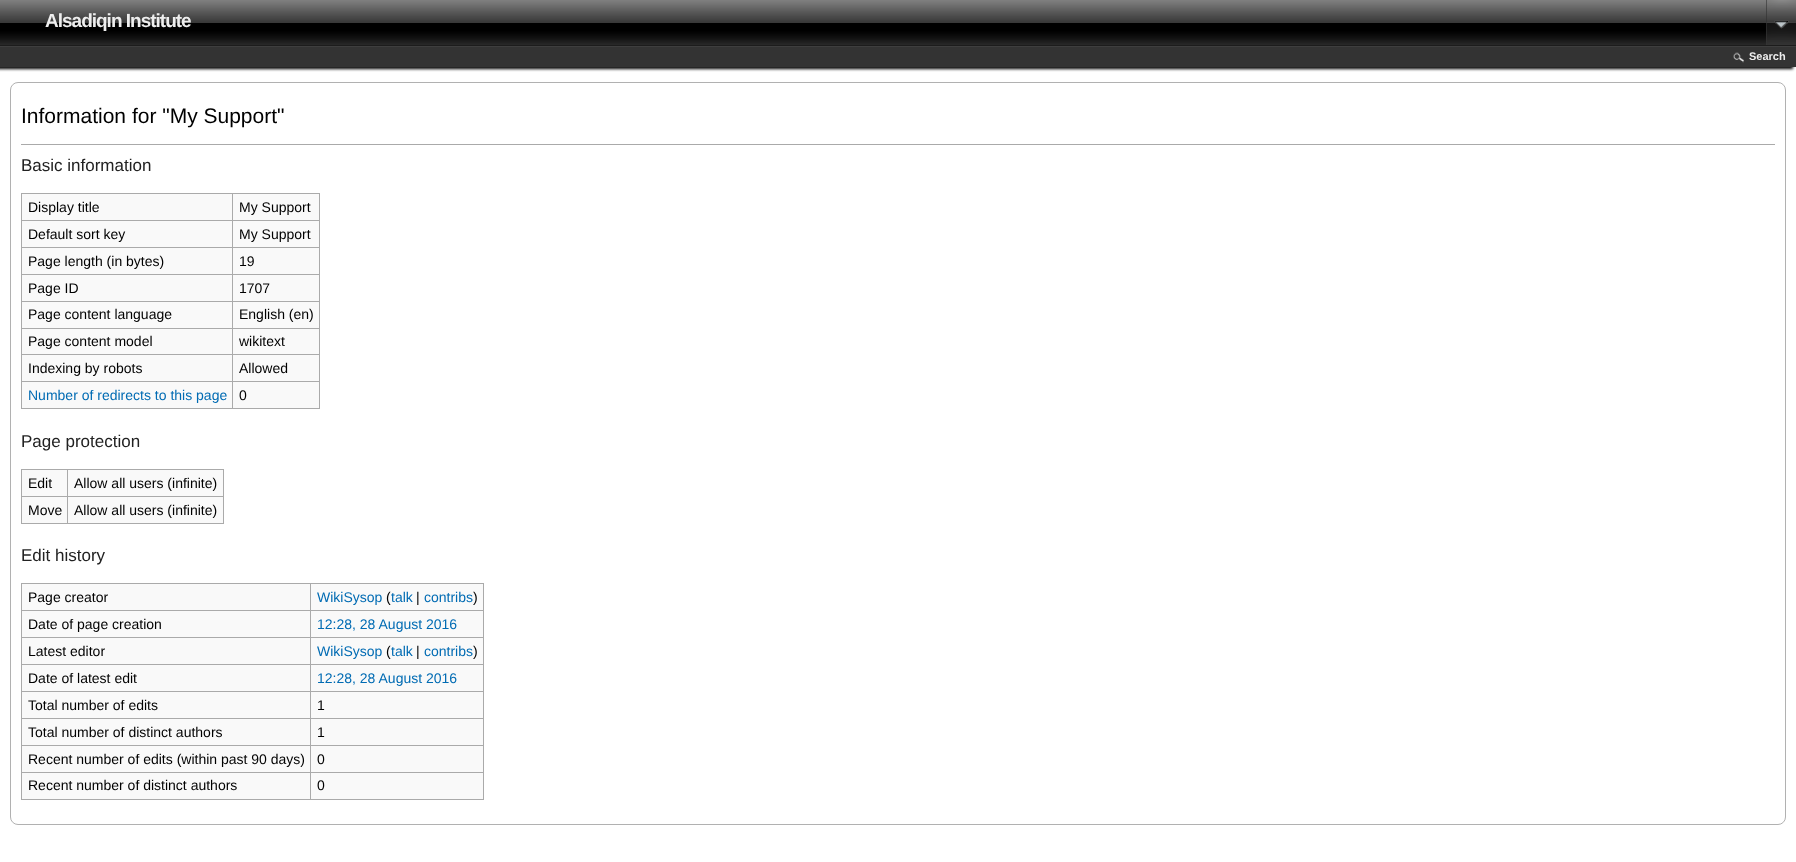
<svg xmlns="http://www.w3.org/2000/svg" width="1796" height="862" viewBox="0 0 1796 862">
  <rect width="100%" height="100%" fill="#fff"/>
  <path d="M0 0h1796v45H0z" fill="#000"/>
  <image x="0" y="0" width="1796" height="45" href="img/1.png"/>
  <path d="M0 45h1796v1H0z" fill="#1e1e1e"/>
  <image x="1766" y="0" width="30" height="45" href="img/2.png"/>
  <path d="M-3 48h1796v21H-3z" fill="#000" filter="blur(1.5px)"/>
  <path d="M0 47h1796v20H0z" fill="#333"/>
  <path d="M0 46h1796v1H0z" fill="#3e3e3e"/>
  <image x="1733" y="52" width="11" height="11" href="img/3.png"/>
  <rect x="10.5" y="82.5" width="1775" height="742" rx="7.5" fill="none" stroke="#b1b1b1"/>
  <path d="M21 144h1754v1H21z" fill="#aaa"/>
  <path d="M22 194h297v214H22z" fill="#f9f9f9"/>
  <path d="M21 193h299v1H21z" fill="#aaa"/>
  <path d="M319 193h1v216H319z" fill="#aaa"/>
  <path d="M21 408h299v1H21z" fill="#aaa"/>
  <path d="M21 193h1v216H21z" fill="#aaa"/>
  <path d="M232 220h88v1H232z" fill="#aaa"/>
  <path d="M232 247h88v1H232z" fill="#aaa"/>
  <path d="M232 274h88v1H232z" fill="#aaa"/>
  <path d="M232 301h88v1H232z" fill="#aaa"/>
  <path d="M232 328h88v1H232z" fill="#aaa"/>
  <path d="M232 354h88v1H232z" fill="#aaa"/>
  <path d="M232 381h88v1H232z" fill="#aaa"/>
  <path d="M232 381h1v28H232z" fill="#aaa"/>
  <path d="M21 381h212v1H21z" fill="#aaa"/>
  <path d="M232 354h1v28H232z" fill="#aaa"/>
  <path d="M21 354h212v1H21z" fill="#aaa"/>
  <path d="M232 328h1v27H232z" fill="#aaa"/>
  <path d="M21 328h212v1H21z" fill="#aaa"/>
  <path d="M232 301h1v28H232z" fill="#aaa"/>
  <path d="M21 301h212v1H21z" fill="#aaa"/>
  <path d="M232 274h1v28H232z" fill="#aaa"/>
  <path d="M21 274h212v1H21z" fill="#aaa"/>
  <path d="M232 247h1v28H232z" fill="#aaa"/>
  <path d="M21 247h212v1H21z" fill="#aaa"/>
  <path d="M232 220h1v28H232z" fill="#aaa"/>
  <path d="M21 220h212v1H21z" fill="#aaa"/>
  <path d="M232 193h1v28H232z" fill="#aaa"/>
  <path d="M22 470h201v53H22z" fill="#f9f9f9"/>
  <path d="M21 469h203v1H21z" fill="#aaa"/>
  <path d="M223 469h1v55H223z" fill="#aaa"/>
  <path d="M21 523h203v1H21z" fill="#aaa"/>
  <path d="M21 469h1v55H21z" fill="#aaa"/>
  <path d="M67 496h157v1H67z" fill="#aaa"/>
  <path d="M67 496h1v28H67z" fill="#aaa"/>
  <path d="M21 496h47v1H21z" fill="#aaa"/>
  <path d="M67 469h1v28H67z" fill="#aaa"/>
  <path d="M22 584h461v215H22z" fill="#f9f9f9"/>
  <path d="M21 583h463v1H21z" fill="#aaa"/>
  <path d="M483 583h1v217H483z" fill="#aaa"/>
  <path d="M21 799h463v1H21z" fill="#aaa"/>
  <path d="M21 583h1v217H21z" fill="#aaa"/>
  <path d="M310 610h174v1H310z" fill="#aaa"/>
  <path d="M310 637h174v1H310z" fill="#aaa"/>
  <path d="M310 664h174v1H310z" fill="#aaa"/>
  <path d="M310 691h174v1H310z" fill="#aaa"/>
  <path d="M310 718h174v1H310z" fill="#aaa"/>
  <path d="M310 745h174v1H310z" fill="#aaa"/>
  <path d="M310 772h174v1H310z" fill="#aaa"/>
  <path d="M310 772h1v28H310z" fill="#aaa"/>
  <path d="M21 772h290v1H21z" fill="#aaa"/>
  <path d="M310 745h1v28H310z" fill="#aaa"/>
  <path d="M21 745h290v1H21z" fill="#aaa"/>
  <path d="M310 718h1v28H310z" fill="#aaa"/>
  <path d="M21 718h290v1H21z" fill="#aaa"/>
  <path d="M310 691h1v28H310z" fill="#aaa"/>
  <path d="M21 691h290v1H21z" fill="#aaa"/>
  <path d="M310 664h1v28H310z" fill="#aaa"/>
  <path d="M21 664h290v1H21z" fill="#aaa"/>
  <path d="M310 637h1v28H310z" fill="#aaa"/>
  <path d="M21 637h290v1H21z" fill="#aaa"/>
  <path d="M310 610h1v28H310z" fill="#aaa"/>
  <path d="M21 610h290v1H21z" fill="#aaa"/>
  <path d="M310 583h1v28H310z" fill="#aaa"/>
  <text x="45" y="27" font-family="Liberation Sans" font-size="19" font-weight="bold" letter-spacing="-1" fill="#eee">Alsadiqin Institute</text>
  <text x="1749" y="60" font-family="Liberation Sans" font-size="11" font-weight="bold" fill="#eee">Search</text>
  <text x="21" y="123" font-family="Liberation Sans" font-size="21" fill="#000">Information for "My Support"</text>
  <text x="21" y="171" font-family="Liberation Sans" font-size="17" fill="#222">Basic information</text>
  <g font-family="Liberation Sans" font-size="14" fill="#000">
    <text x="28" y="212">Display title</text>
    <text x="239" y="212">My Support</text>
    <text x="28" y="239">Default sort key</text>
    <text x="239" y="239">My Support</text>
    <text x="28" y="266">Page length (in bytes)</text>
    <text x="239" y="266">19</text>
    <text x="28" y="293">Page ID</text>
    <text x="239" y="293">1707</text>
    <text x="28" y="319">Page content language</text>
    <text x="239" y="319">English (en)</text>
    <text x="28" y="346">Page content model</text>
    <text x="239" y="346">wikitext</text>
    <text x="28" y="373">Indexing by robots</text>
    <text x="239" y="373">Allowed</text>
  </g>
  <text x="28" y="400" font-family="Liberation Sans" font-size="14" fill="#006bb3">Number of redirects to this page</text>
  <text x="239" y="400" font-family="Liberation Sans" font-size="14" fill="#000">0</text>
  <text x="21" y="447" font-family="Liberation Sans" font-size="17" fill="#222">Page protection</text>
  <g font-family="Liberation Sans" font-size="14" fill="#000">
    <text x="28" y="488">Edit</text>
    <text x="74" y="488">Allow all users (infinite)</text>
    <text x="28" y="515">Move</text>
    <text x="74" y="515">Allow all users (infinite)</text>
  </g>
  <text x="21" y="561" font-family="Liberation Sans" font-size="17" fill="#222">Edit history</text>
  <text x="28" y="602" font-family="Liberation Sans" font-size="14" fill="#000">Page creator</text>
  <text x="317" y="602" font-family="Liberation Sans" font-size="14" fill="#006bb3">WikiSysop</text>
  <text x="386" y="602" font-family="Liberation Sans" font-size="14" fill="#000">(</text>
  <text x="391" y="602" font-family="Liberation Sans" font-size="14" fill="#006bb3">talk</text>
  <text x="416" y="602" font-family="Liberation Sans" font-size="14" fill="#000">|</text>
  <text x="424" y="602" font-family="Liberation Sans" font-size="14" fill="#006bb3">contribs</text>
  <g font-family="Liberation Sans" font-size="14" fill="#000">
    <text x="473" y="602">)</text>
    <text x="28" y="629">Date of page creation</text>
  </g>
  <text x="317" y="629" font-family="Liberation Sans" font-size="14" fill="#006bb3">12:28, 28 August 2016</text>
  <text x="28" y="656" font-family="Liberation Sans" font-size="14" fill="#000">Latest editor</text>
  <text x="317" y="656" font-family="Liberation Sans" font-size="14" fill="#006bb3">WikiSysop</text>
  <text x="386" y="656" font-family="Liberation Sans" font-size="14" fill="#000">(</text>
  <text x="391" y="656" font-family="Liberation Sans" font-size="14" fill="#006bb3">talk</text>
  <text x="416" y="656" font-family="Liberation Sans" font-size="14" fill="#000">|</text>
  <text x="424" y="656" font-family="Liberation Sans" font-size="14" fill="#006bb3">contribs</text>
  <g font-family="Liberation Sans" font-size="14" fill="#000">
    <text x="473" y="656">)</text>
    <text x="28" y="683">Date of latest edit</text>
  </g>
  <text x="317" y="683" font-family="Liberation Sans" font-size="14" fill="#006bb3">12:28, 28 August 2016</text>
  <g font-family="Liberation Sans" font-size="14" fill="#000">
    <text x="28" y="710">Total number of edits</text>
    <text x="317" y="710">1</text>
    <text x="28" y="737">Total number of distinct authors</text>
    <text x="317" y="737">1</text>
    <text x="28" y="764">Recent number of edits (within past 90 days)</text>
    <text x="317" y="764">0</text>
    <text x="28" y="790">Recent number of distinct authors</text>
    <text x="317" y="790">0</text>
  </g>
</svg>
